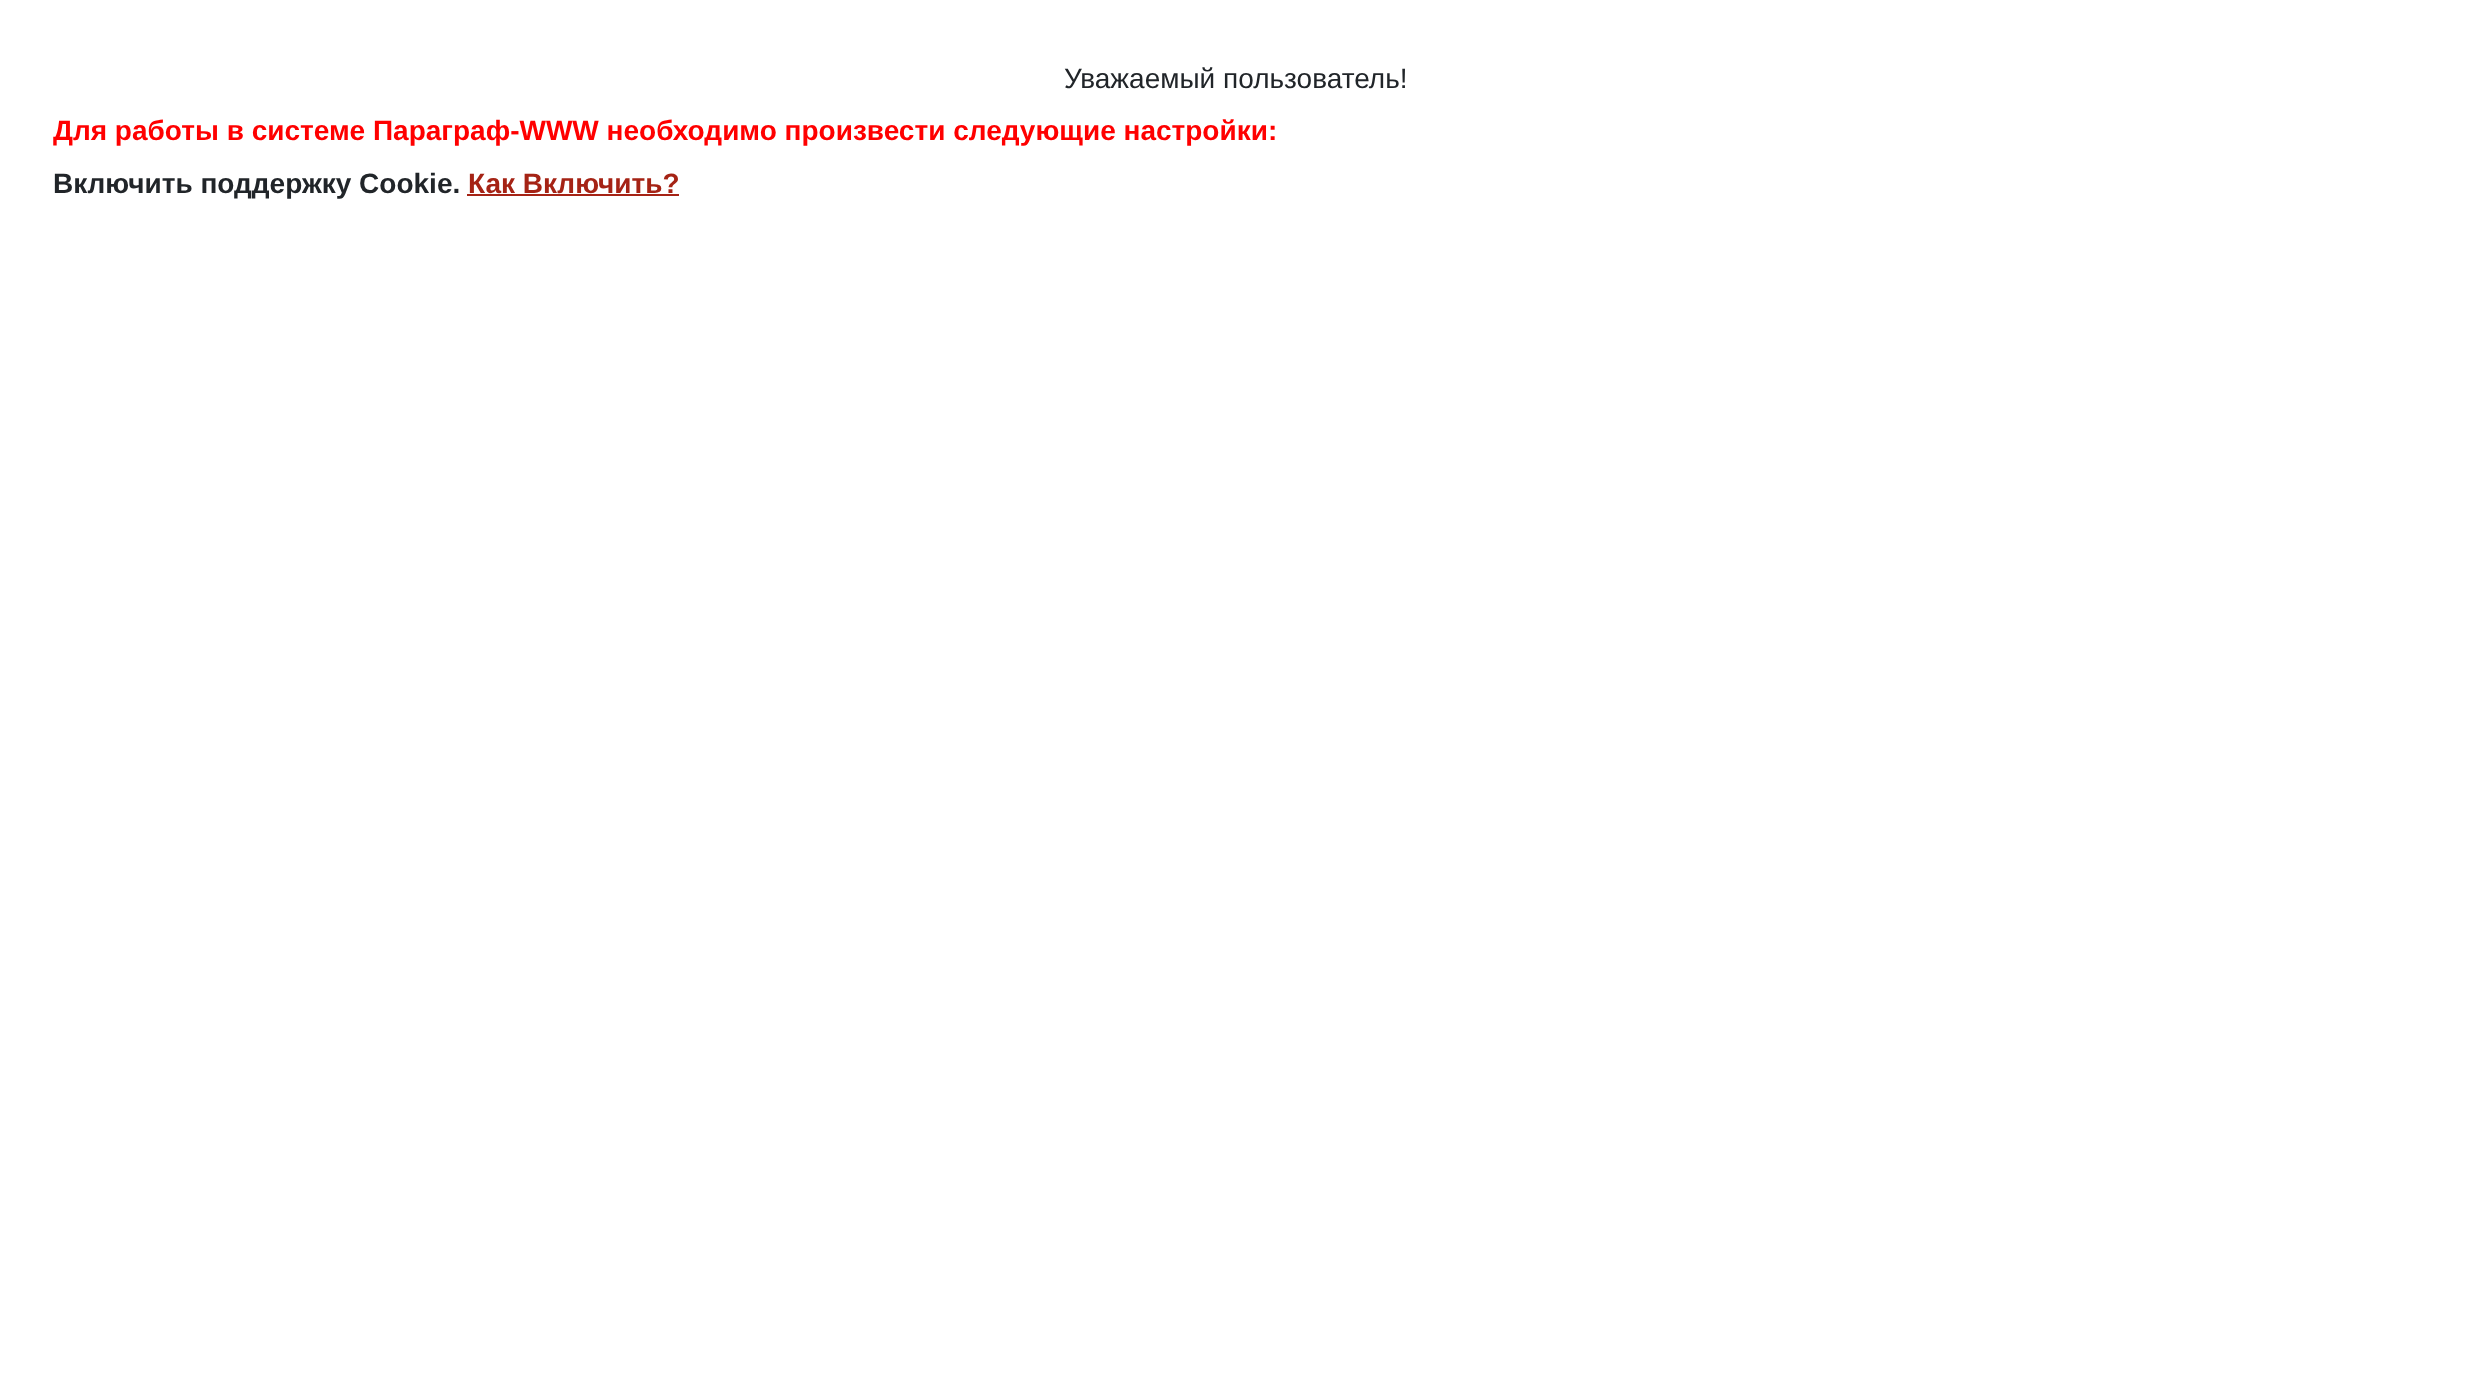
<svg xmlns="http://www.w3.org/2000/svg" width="2471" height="1383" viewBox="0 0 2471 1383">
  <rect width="100%" height="100%" fill="#fff"/>
  <path d="M467 194h212v2H467z" fill="#a52315"/>
  <text x="1064" y="88" font-family="Liberation Sans" font-size="28" fill="#212529">Уважаемый пользователь!</text>
  <text x="53" y="140" font-family="Liberation Sans" font-size="28" font-weight="bold" fill="#f00">Для работы в системе Параграф-WWW необходимо произвести следующие настройки:</text>
  <text x="53" y="193" font-family="Liberation Sans" font-size="28" font-weight="bold" fill="#212529">Включить поддержку Cookie.</text>
  <text x="468" y="193" font-family="Liberation Sans" font-size="28" font-weight="bold" fill="#a52315">Как Включить?</text>
</svg>
